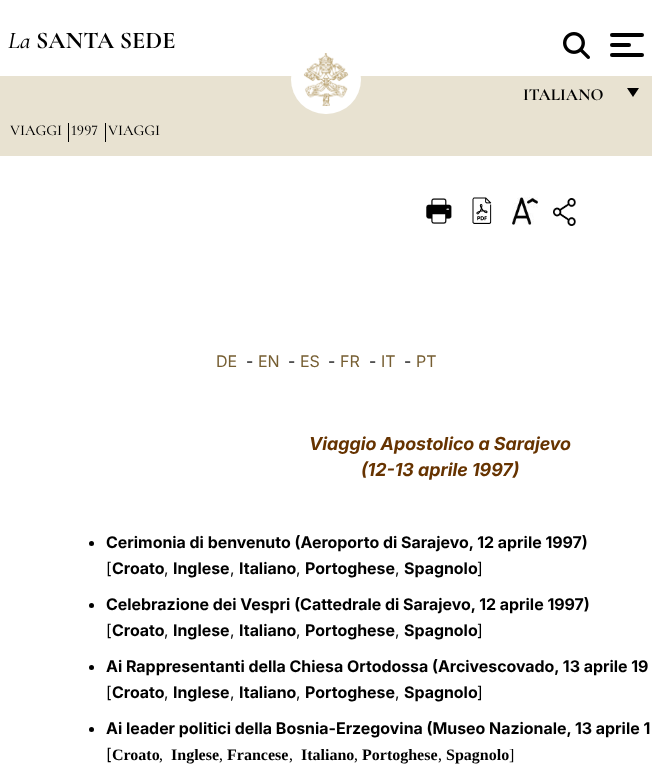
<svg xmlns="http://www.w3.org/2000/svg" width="652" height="768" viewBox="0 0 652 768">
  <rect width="100%" height="100%" fill="#fff"/>
  <path d="M0 76h652v80H0z" fill="#e8e2d1"/>
  <rect x="291" y="45" width="70" height="69" rx="34.5" fill="#fff"/>
  <image x="303" y="53" width="46" height="53" href="img/1.png"/>
  <image x="563" y="32" width="27" height="27" href="img/2.png"/>
  <rect x="610" y="33" width="34" height="4" rx="2" fill="#000"/>
  <rect x="610" y="43" width="21" height="4" rx="2" fill="#000"/>
  <rect x="610" y="53" width="34" height="4" rx="2" fill="#000"/>
  <path d="M627 88H639L633 97Z" fill="#000"/>
  <path d="M68 123h1v19H68z" fill="#000"/>
  <path d="M105 123h1v19H105z" fill="#000"/>
  <image x="426" y="198" width="26" height="26" href="img/3.png"/>
  <image x="472" y="197" width="20" height="27" href="img/4.png"/>
  <image x="512" y="197" width="26" height="28" href="img/5.png"/>
  <image x="553" y="198" width="23" height="28" href="img/6.png"/>
  <circle cx="91.5" cy="543.5" r="2.5" fill="#000"/>
  <circle cx="91.5" cy="605.5" r="2.5" fill="#000"/>
  <circle cx="91.5" cy="667.5" r="2.5" fill="#000"/>
  <circle cx="91.5" cy="729.5" r="2.5" fill="#000"/>
  <text x="8" y="48" font-family="Cormorant Garamond" font-size="24" font-weight="500" font-style="italic" fill="#000">La</text>
  <text x="36" y="48" font-family="Cormorant Garamond" font-size="24" font-weight="bold" fill="#000">SANTA SEDE</text>
  <text x="523" y="100" font-family="Cormorant Garamond" font-size="17" font-weight="bold" fill="#000">ITALIANO</text>
  <text x="10" y="135" font-family="Cormorant Garamond" font-size="15" font-weight="500" fill="#000">VIAGGI</text>
  <text x="71" y="135" font-family="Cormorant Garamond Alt" font-size="15" font-weight="500" fill="#000">1997</text>
  <text x="108" y="135" font-family="Cormorant Garamond" font-size="15" font-weight="500" fill="#000">VIAGGI</text>
  <text x="216" y="367" font-family="Inter" font-size="16" fill="#765e32">DE</text>
  <text x="246" y="367" font-family="'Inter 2'" font-size="16" fill="#000">-</text>
  <text x="258" y="367" font-family="Inter" font-size="16" fill="#765e32">EN</text>
  <text x="288" y="367" font-family="'Inter 2'" font-size="16" fill="#000">-</text>
  <text x="300" y="367" font-family="Inter" font-size="16" fill="#765e32">ES</text>
  <text x="328" y="367" font-family="'Inter 2'" font-size="16" fill="#000">-</text>
  <text x="340" y="367" font-family="Inter" font-size="16" fill="#765e32">FR</text>
  <text x="369" y="367" font-family="'Inter 2'" font-size="16" fill="#000">-</text>
  <text x="381" y="367" font-family="'Inter 2'" font-size="16" fill="#765e32">IT</text>
  <text x="404" y="367" font-family="'Inter 2'" font-size="16" fill="#000">-</text>
  <text x="416" y="367" font-family="'Inter 2'" font-size="16" fill="#765e32">PT</text>
  <g font-family="Inter" font-size="18" font-weight="bold" font-style="italic" fill="#630">
    <text x="309" y="450">Viaggio Apostolico a Sarajevo</text>
    <text x="361" y="476">(12-13 aprile 1997)</text>
  </g>
  <text x="106" y="548" font-family="Inter" font-size="16" font-weight="bold" fill="#000">Cerimonia di benvenuto (Aeroporto di Sarajevo, 12 aprile 1997)</text>
  <text x="106" y="574" font-family="'Inter 2'" font-size="16" fill="#000">[</text>
  <text x="112" y="574" font-family="Inter" font-size="16" font-weight="bold" fill="#000">Croato</text>
  <text x="164" y="574" font-family="'Inter 2'" font-size="16" fill="#000">,</text>
  <text x="173" y="574" font-family="Inter" font-size="16" font-weight="bold" fill="#000">Inglese</text>
  <text x="230" y="574" font-family="'Inter 2'" font-size="16" fill="#000">,</text>
  <text x="239" y="574" font-family="Inter" font-size="16" font-weight="bold" fill="#000">Italiano</text>
  <text x="296" y="574" font-family="'Inter 2'" font-size="16" fill="#000">,</text>
  <text x="305" y="574" font-family="Inter" font-size="16" font-weight="bold" fill="#000">Portoghese</text>
  <text x="395" y="574" font-family="'Inter 2'" font-size="16" fill="#000">,</text>
  <text x="404" y="574" font-family="Inter" font-size="16" font-weight="bold" fill="#000">Spagnolo</text>
  <text x="477" y="574" font-family="'Inter 2'" font-size="16" fill="#000">]</text>
  <text x="106" y="610" font-family="Inter" font-size="16" font-weight="bold" fill="#000">Celebrazione dei Vespri (Cattedrale di Sarajevo, 12 aprile 1997)</text>
  <text x="106" y="636" font-family="'Inter 2'" font-size="16" fill="#000">[</text>
  <text x="112" y="636" font-family="Inter" font-size="16" font-weight="bold" fill="#000">Croato</text>
  <text x="164" y="636" font-family="'Inter 2'" font-size="16" fill="#000">,</text>
  <text x="173" y="636" font-family="Inter" font-size="16" font-weight="bold" fill="#000">Inglese</text>
  <text x="230" y="636" font-family="'Inter 2'" font-size="16" fill="#000">,</text>
  <text x="239" y="636" font-family="Inter" font-size="16" font-weight="bold" fill="#000">Italiano</text>
  <text x="296" y="636" font-family="'Inter 2'" font-size="16" fill="#000">,</text>
  <text x="305" y="636" font-family="Inter" font-size="16" font-weight="bold" fill="#000">Portoghese</text>
  <text x="395" y="636" font-family="'Inter 2'" font-size="16" fill="#000">,</text>
  <text x="404" y="636" font-family="Inter" font-size="16" font-weight="bold" fill="#000">Spagnolo</text>
  <text x="477" y="636" font-family="'Inter 2'" font-size="16" fill="#000">]</text>
  <text x="106" y="672" font-family="Inter" font-size="16" font-weight="bold" fill="#000">Ai Rappresentanti della Chiesa Ortodossa (Arcivescovado, 13 aprile 19</text>
  <text x="106" y="698" font-family="'Inter 2'" font-size="16" fill="#000">[</text>
  <text x="112" y="698" font-family="Inter" font-size="16" font-weight="bold" fill="#000">Croato</text>
  <text x="164" y="698" font-family="'Inter 2'" font-size="16" fill="#000">,</text>
  <text x="173" y="698" font-family="Inter" font-size="16" font-weight="bold" fill="#000">Inglese</text>
  <text x="230" y="698" font-family="'Inter 2'" font-size="16" fill="#000">,</text>
  <text x="239" y="698" font-family="Inter" font-size="16" font-weight="bold" fill="#000">Italiano</text>
  <text x="296" y="698" font-family="'Inter 2'" font-size="16" fill="#000">,</text>
  <text x="305" y="698" font-family="Inter" font-size="16" font-weight="bold" fill="#000">Portoghese</text>
  <text x="395" y="698" font-family="'Inter 2'" font-size="16" fill="#000">,</text>
  <text x="404" y="698" font-family="Inter" font-size="16" font-weight="bold" fill="#000">Spagnolo</text>
  <text x="477" y="698" font-family="'Inter 2'" font-size="16" fill="#000">]</text>
  <text x="106" y="734" font-family="Inter" font-size="16" font-weight="bold" fill="#000">Ai leader politici della Bosnia-Erzegovina (Museo Nazionale, 13 aprile 1</text>
  <text x="106" y="760" font-family="'Inter 2'" font-size="16" fill="#000">[</text>
  <text x="112" y="760" font-family="Liberation Serif" font-size="16" font-weight="bold" fill="#000">Croato</text>
  <text x="159" y="760" font-family="Liberation Serif" font-size="16" fill="#000">,</text>
  <text x="171" y="760" font-family="Liberation Serif" font-size="16" font-weight="bold" fill="#000">Inglese</text>
  <text x="219" y="760" font-family="Liberation Serif" font-size="16" fill="#000">,</text>
  <text x="227" y="760" font-family="Liberation Serif" font-size="16" font-weight="bold" fill="#000">Francese</text>
  <text x="289" y="760" font-family="Liberation Serif" font-size="16" fill="#000">,</text>
  <text x="301" y="760" font-family="Liberation Serif" font-size="16" font-weight="bold" fill="#000">Italiano</text>
  <text x="354" y="760" font-family="Liberation Serif" font-size="16" fill="#000">,</text>
  <text x="362" y="760" font-family="Liberation Serif" font-size="16" font-weight="bold" fill="#000">Portoghese</text>
  <text x="438" y="760" font-family="Liberation Serif" font-size="16" fill="#000">,</text>
  <text x="446" y="760" font-family="Liberation Serif" font-size="16" font-weight="bold" fill="#000">Spagnolo</text>
  <text x="509" y="760" font-family="Liberation Serif" font-size="16" fill="#000">]</text>
</svg>
